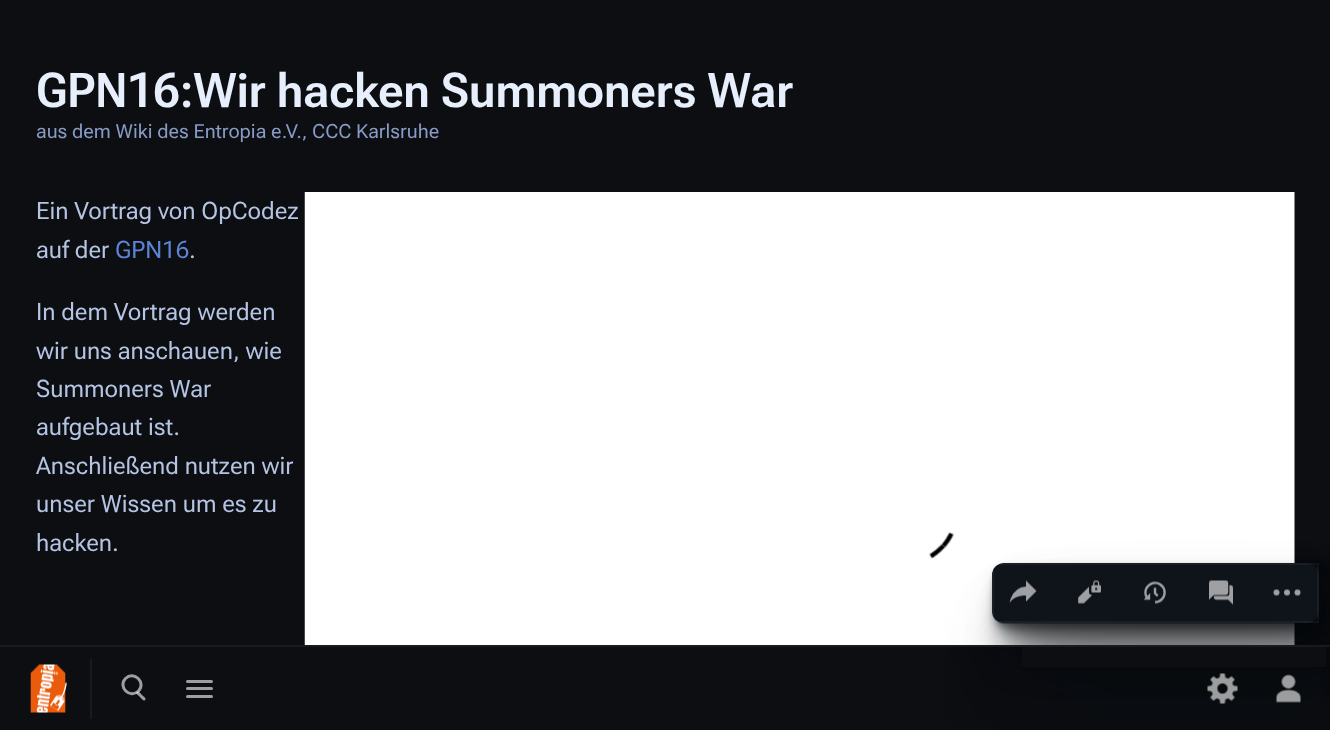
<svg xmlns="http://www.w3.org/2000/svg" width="1330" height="730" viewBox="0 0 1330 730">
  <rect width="100%" height="100%" fill="#0c0e12"/>
  <image x="304" y="192" width="991" height="453" href="img/6.png"/>
  <rect x="1034" y="642" width="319" height="53" rx="9" fill="#04060b4d" filter="blur(47px)"/>
  <rect x="1020" y="617" width="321" height="54" rx="9" fill="#04060b4d" filter="blur(32px)"/>
  <rect x="1011" y="599" width="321" height="55" rx="9" fill="#04060b4d" filter="blur(21px)"/>
  <rect x="1005" y="587" width="323" height="55" rx="11" fill="#04060b4d" filter="blur(13.5px)"/>
  <rect x="1001" y="578" width="322" height="57" rx="11" fill="#04060b4d" filter="blur(8.5px)"/>
  <rect x="996" y="572" width="326" height="58" rx="11" fill="#04060b4d" filter="blur(5px)"/>
  <rect x="995" y="567" width="325" height="59" rx="12" fill="#04060b4d" filter="blur(3px)"/>
  <rect x="992" y="564" width="327" height="60" rx="12" fill="#04060b4d" filter="blur(0.5px)"/>
  <rect x="992" y="563" width="327" height="60" rx="12" fill="#0f131a"/>
  <path d="M993 564h325v58H993z" fill="none" stroke="#ffffff0d" stroke-width="2"/>
  <image x="1009" y="580" width="28" height="23" href="img/1.png"/>
  <image x="1078" y="580" width="23" height="24" href="img/2.png"/>
  <image x="1144" y="581" width="22" height="23" href="img/3.png"/>
  <image x="1209" y="580" width="24" height="25" href="img/4.png"/>
  <image x="1273" y="589" width="28" height="7" href="img/5.png"/>
  <path d="M1022 647h304v20H1022z" fill="#0c0e12"/>
  <path d="M0 645h1330v2H0z" fill="#181a1e"/>
  <path d="M90 659h2v60H90z" fill="#181a1e"/>
  <image x="30" y="664" width="37" height="49" href="img/7.png"/>
  <path d="M137 692C138.5 690 141 694 142 695C143 696 147 698.5 145 700C143.5 702 141 698 140 697C139 696 135 693.5 137 692Z" fill="#9e9fa0"/>
  <path d="M125.5 678.5C134 670 146.5 683 138.5 691C130 699.5 117.5 686.5 125.5 678.5Z" fill="none" stroke="#ffffff99" stroke-width="3"/>
  <rect x="186" y="680" width="27" height="3" rx="1.5" fill="#9e9fa0"/>
  <rect x="186" y="687" width="27" height="3" rx="1.5" fill="#9e9fa0"/>
  <rect x="186" y="695" width="27" height="3" rx="1.5" fill="#9e9fa0"/>
  <image x="1207" y="673" width="31" height="31" href="img/8.png"/>
  <image x="1276" y="674" width="25" height="29" href="img/9.png"/>
  <text x="36" y="107" font-family="Roboto Flex" font-size="48" font-weight="600" fill="#e8effc">GPN16:Wir hacken Summoners War</text>
  <text x="36" y="138" font-family="'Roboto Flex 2'" font-size="19.5" fill="#879bc5">aus dem Wiki des Entropia e.V., CCC Karlsruhe</text>
  <g font-family="Roboto Flex" font-size="24" fill="#b5c4e3">
    <text x="36" y="219">Ein Vortrag von OpCodez</text>
    <text x="36" y="258">auf der</text>
  </g>
  <text x="115" y="258" font-family="Roboto Flex" font-size="24" fill="#5c85d6">GPN16</text>
  <g font-family="Roboto Flex" font-size="24" fill="#b5c4e3">
    <text x="189" y="258">.</text>
    <text x="36" y="320">In dem Vortrag werden</text>
    <text x="36" y="359">wir uns anschauen, wie</text>
    <text x="36" y="397">Summoners War</text>
    <text x="36" y="435">aufgebaut ist.</text>
    <text x="36" y="474">Anschließend nutzen wir</text>
    <text x="36" y="512">unser Wissen um es zu</text>
    <text x="36" y="551">hacken.</text>
  </g>
</svg>
